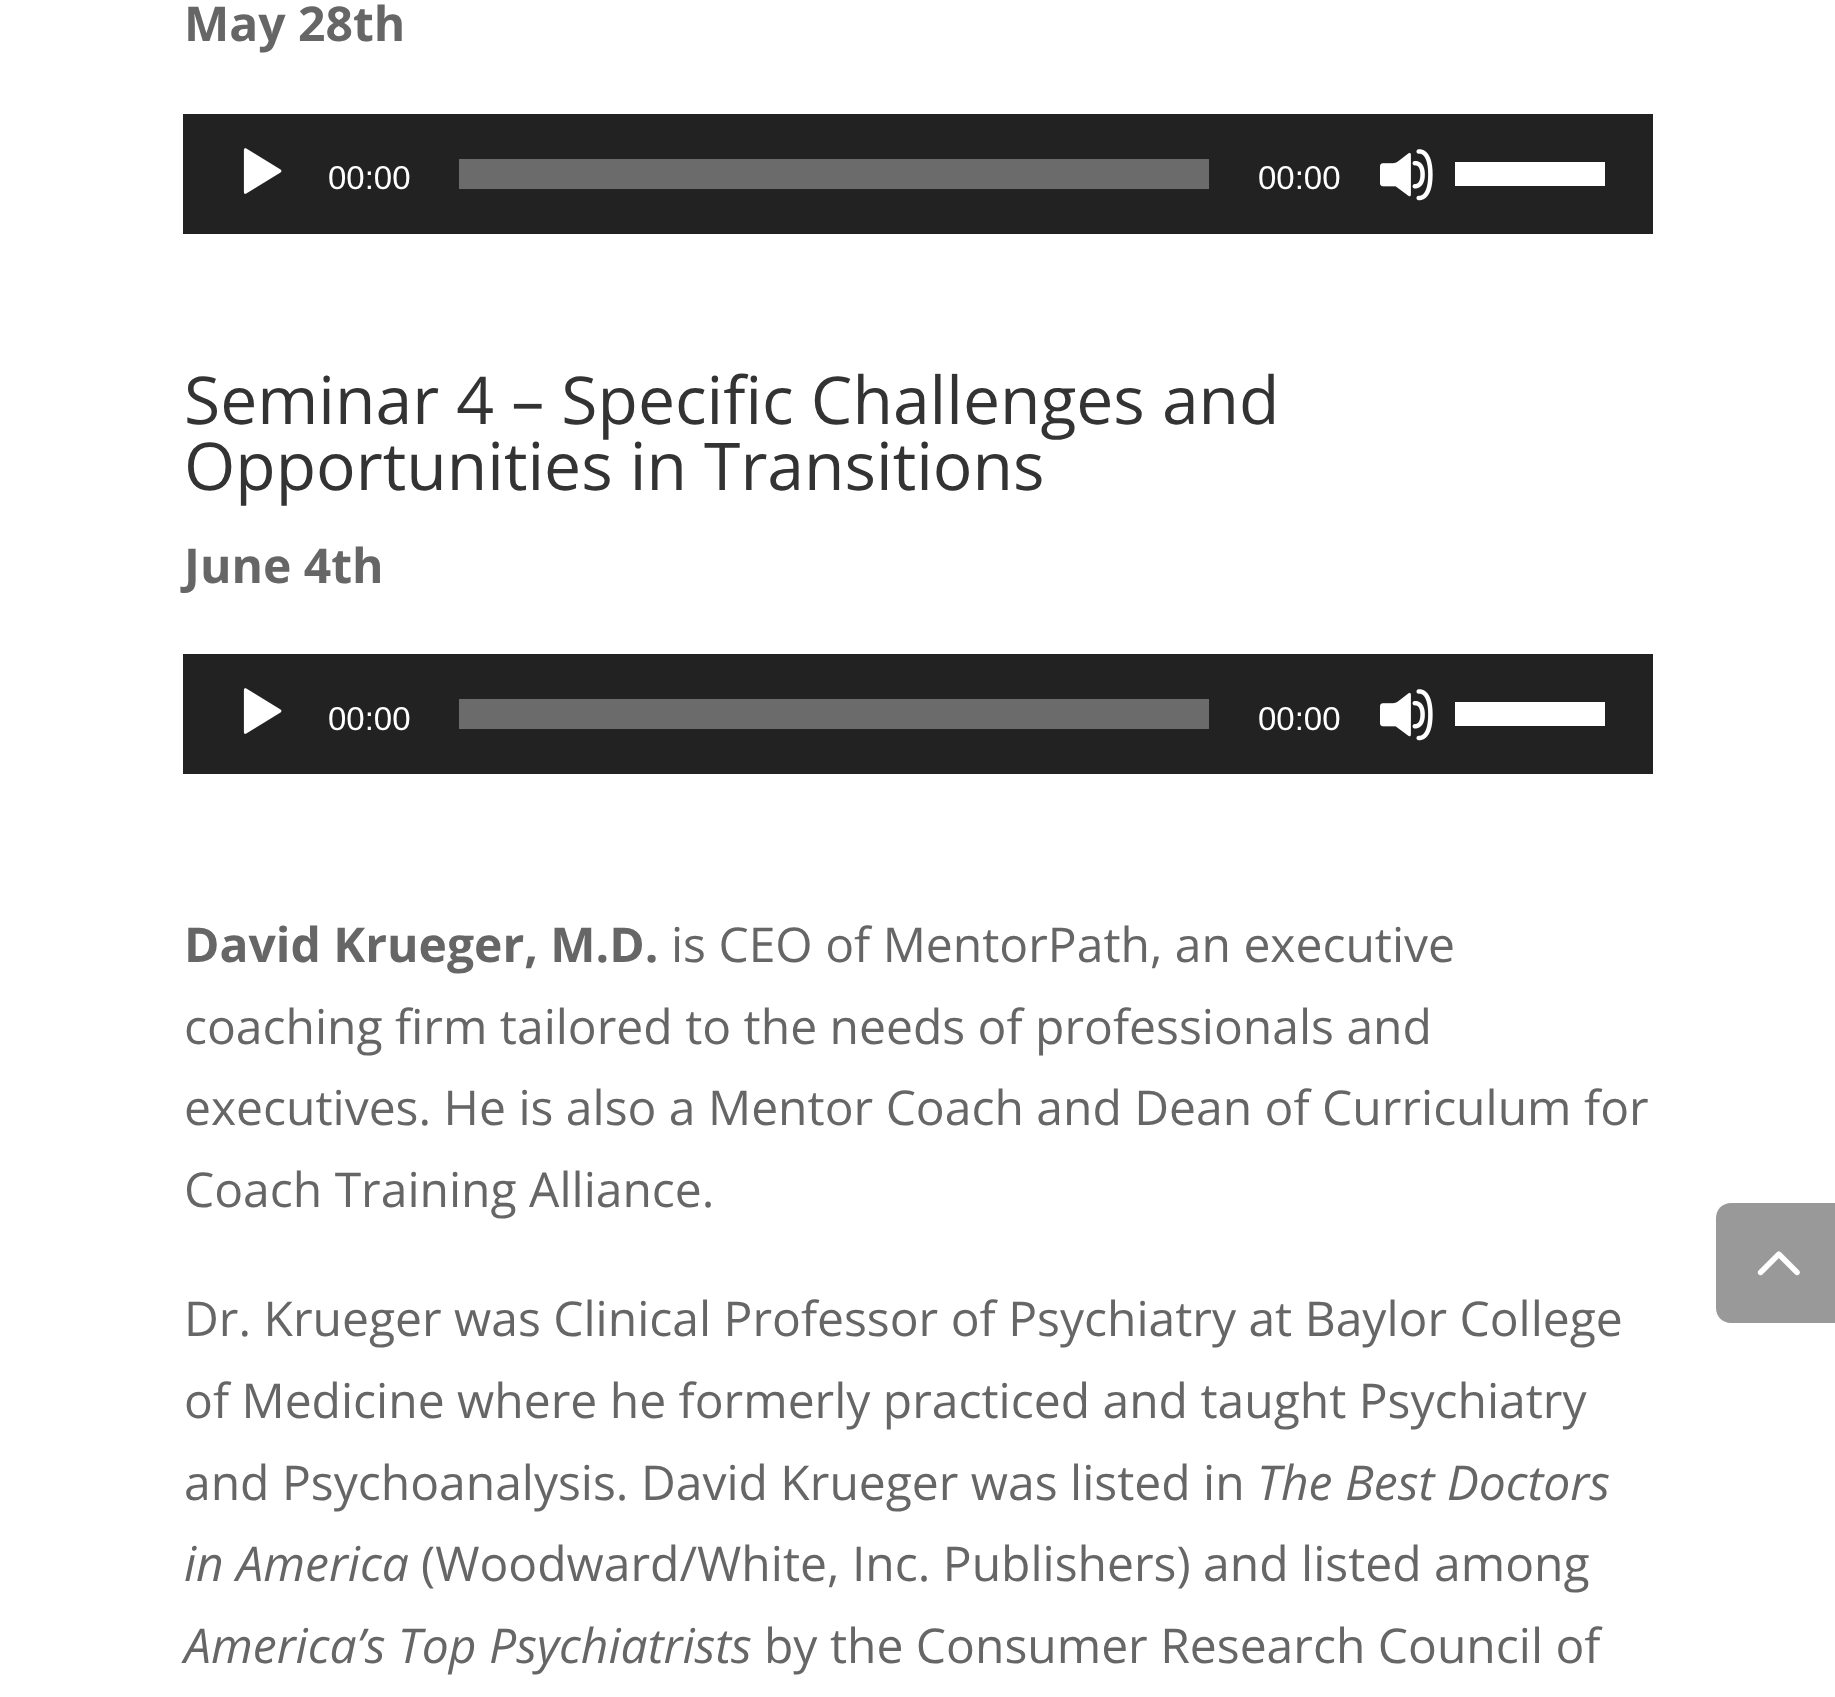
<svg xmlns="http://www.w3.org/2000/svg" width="1835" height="1697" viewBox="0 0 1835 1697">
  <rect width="100%" height="100%" fill="#fff"/>
  <path d="M183 114h1470v120H183z" fill="#222"/>
  <image x="243" y="148" width="39" height="46" href="img/1.png"/>
  <path d="M459 159h750v30H459z" fill="#6b6b6b"/>
  <image x="1380" y="149" width="53" height="52" href="img/2.png"/>
  <path d="M1455 162h150v24H1455z" fill="#fff"/>
  <path d="M183 654h1470v120H183z" fill="#222"/>
  <image x="243" y="688" width="39" height="46" href="img/1.png"/>
  <path d="M459 699h750v30H459z" fill="#6b6b6b"/>
  <image x="1380" y="689" width="53" height="52" href="img/2.png"/>
  <path d="M1455 702h150v24H1455z" fill="#fff"/>
  <path d="M1731 1203H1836V1323H1731C1722.5 1323 1716 1316.5 1716 1308V1218C1716 1209.5 1722.5 1203 1731 1203Z" fill="#999"/>
  <image x="1757" y="1251" width="43" height="25" href="img/3.png"/>
  <text x="184" y="41" font-family="Open Sans" font-size="48" font-weight="bold" fill="#666">May 28th</text>
  <g font-family="Liberation Sans" font-size="33" fill="#fff">
    <text x="328" y="189">00:00</text>
    <text x="1258" y="189">00:00</text>
  </g>
  <g font-family="Open Sans" font-size="66" fill="#333">
    <text x="184" y="424">Seminar 4 – Specific Challenges and</text>
    <text x="184" y="490">Opportunities in Transitions</text>
  </g>
  <text x="184" y="583" font-family="Open Sans" font-size="48" font-weight="bold" fill="#666">June 4th</text>
  <g font-family="Liberation Sans" font-size="33" fill="#fff">
    <text x="328" y="730">00:00</text>
    <text x="1258" y="730">00:00</text>
  </g>
  <text x="184" y="962" font-family="Open Sans" font-size="48" font-weight="bold" fill="#666">David Krueger, M.D.</text>
  <g font-family="Open Sans" font-size="48" fill="#666">
    <text x="671" y="962">is CEO of MentorPath, an executive</text>
    <text x="184" y="1044">coaching firm tailored to the needs of professionals and</text>
    <text x="184" y="1125">executives. He is also a Mentor Coach and Dean of Curriculum for</text>
    <text x="184" y="1207">Coach Training Alliance.</text>
    <text x="184" y="1336">Dr. Krueger was Clinical Professor of Psychiatry at Baylor College</text>
    <text x="184" y="1418">of Medicine where he formerly practiced and taught Psychiatry</text>
    <text x="184" y="1500">and Psychoanalysis. David Krueger was listed in</text>
  </g>
  <g font-family="Open Sans" font-size="48" font-style="italic" fill="#666">
    <text x="1257" y="1500">The Best Doctors</text>
    <text x="184" y="1581">in America</text>
  </g>
  <text x="421" y="1581" font-family="Open Sans" font-size="48" fill="#666">(Woodward/White, Inc. Publishers) and listed among</text>
  <text x="184" y="1663" font-family="Open Sans" font-size="48" font-style="italic" fill="#666">America’s Top Psychiatrists</text>
  <text x="764" y="1663" font-family="Open Sans" font-size="48" fill="#666">by the Consumer Research Council of</text>
</svg>
